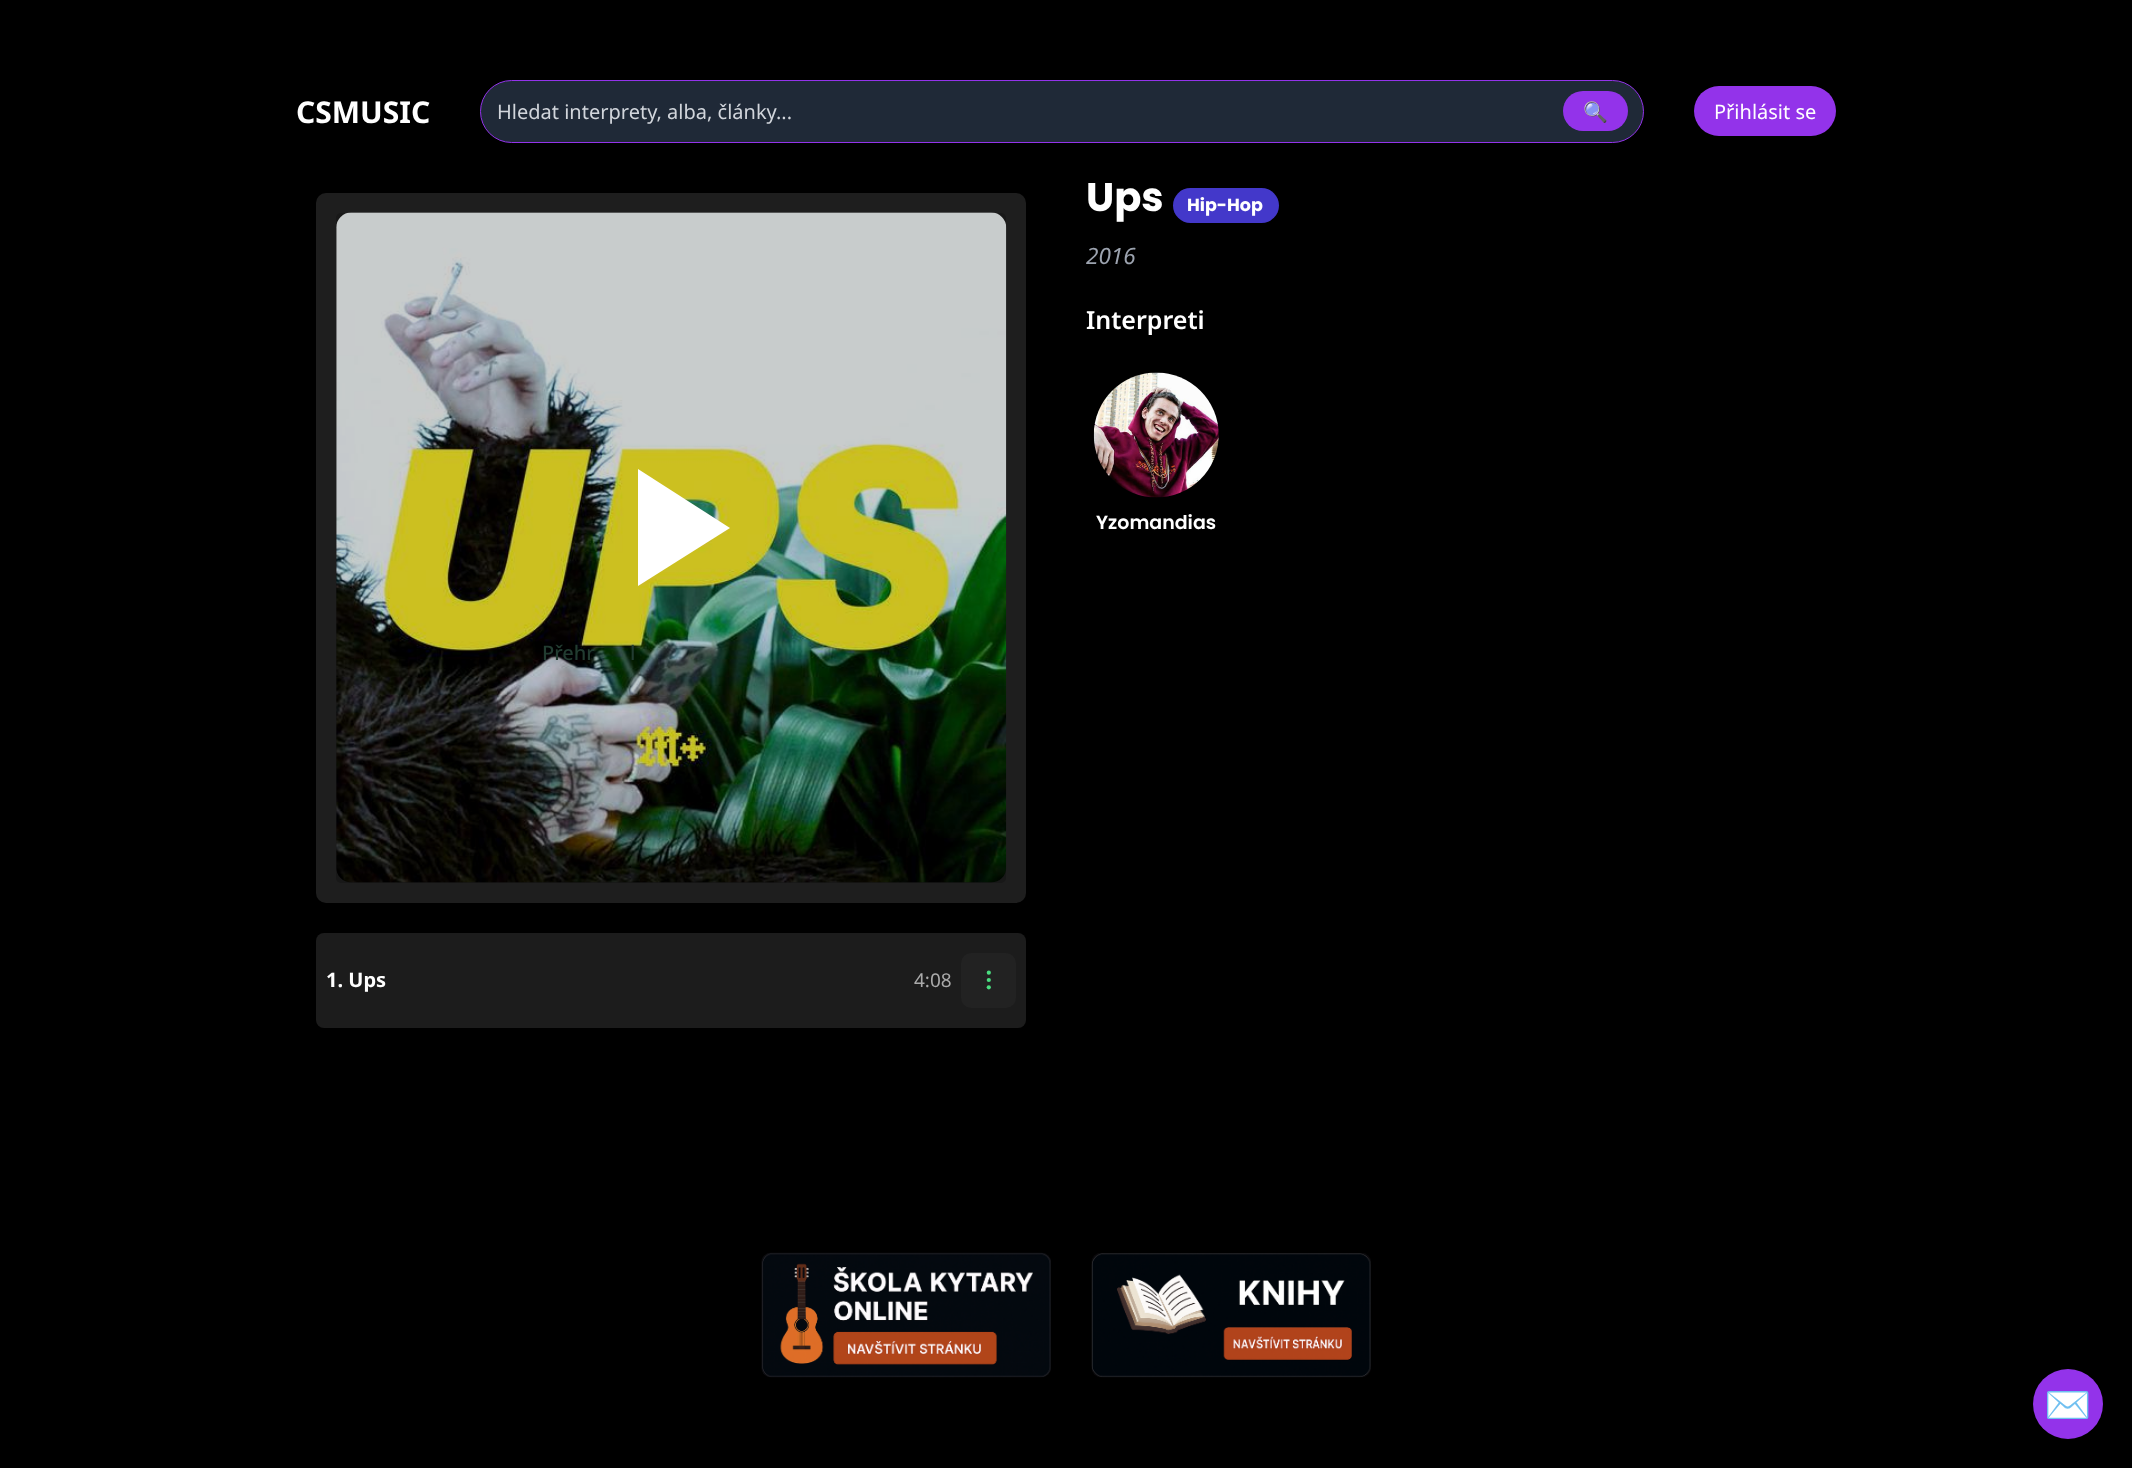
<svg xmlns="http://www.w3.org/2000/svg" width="2132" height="1468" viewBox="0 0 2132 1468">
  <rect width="100%" height="100%" fill="#000"/>
  <rect x="480.5" y="80.5" width="1163" height="62" rx="31" fill="#1f2937" stroke="#9333ea"/>
  <rect x="1563" y="91" width="65" height="40" rx="20" fill="#9333ea"/>
  <rect x="1694" y="86" width="142" height="50" rx="25" fill="#9333ea"/>
  <rect x="1173" y="188" width="106" height="35" rx="17.5" fill="#4338ca"/>
  <image x="1093" y="372" width="126" height="126" href="img/1.png"/>
  <rect x="316" y="193" width="710" height="710" rx="10" fill="#1e1e1e"/>
  <image x="336" y="212" width="671" height="671" href="img/2.png"/>
  <rect x="336" y="213" width="670" height="670" rx="5" fill="#00000033"/>
  <path d="M638 469V586L730 528Z" fill="#fff"/>
  <rect x="316" y="933" width="710" height="95" rx="8" fill="#1c1c1c"/>
  <rect x="961" y="953" width="55" height="55" rx="10" fill="#222"/>
  <circle cx="988.8" cy="972.7" r="2.1" fill="#4ade80"/>
  <circle cx="988.8" cy="980" r="2.1" fill="#4ade80"/>
  <circle cx="988.8" cy="987.3" r="2.1" fill="#4ade80"/>
  <image x="761" y="1252" width="290" height="126" href="img/3.png"/>
  <image x="1091" y="1253" width="280" height="125" href="img/4.png"/>
  <circle cx="2068" cy="1404" r="35" fill="#9333ea"/>
  <text x="296" y="123" font-family="Noto Sans" font-size="30" font-weight="bold" fill="#fff">CSMUSIC</text>
  <text x="497" y="119" font-family="Noto Sans" font-size="20" fill="#d1d5db">Hledat interprety, alba, články...</text>
  <text x="1583" y="119" font-family="Noto Color Emoji" font-size="20" fill="#fff">🔍</text>
  <text x="1714" y="119" font-family="Noto Sans" font-size="20" fill="#fff">Přihlásit se</text>
  <text x="1086" y="211" font-family="Poppins" font-size="40" font-weight="bold" fill="#fff">Ups</text>
  <text x="1187" y="211" font-family="Poppins" font-size="17.5" font-weight="bold" fill="#fff">Hip-Hop</text>
  <text x="1086" y="264" font-family="Noto Sans" font-size="22.5" font-style="italic" fill="#9ca3af">2016</text>
  <text x="1086" y="329" font-family="Noto Sans" font-size="25" font-weight="600" fill="#fff">Interpreti</text>
  <text x="1096" y="529" font-family="Poppins" font-size="19" font-weight="600" fill="#fff">Yzomandias</text>
  <g font-family="Noto Sans" font-size="20" font-weight="500" fill="#223c31">
    <text x="542" y="660">Přehr</text>
    <text x="630" y="660">l</text>
  </g>
  <text x="326" y="987" font-family="Noto Sans" font-size="20" font-weight="bold" fill="#fff">1. Ups</text>
  <text x="914" y="987" font-family="Noto Sans" font-size="19" fill="#aaa">4:08</text>
  <text x="2044" y="1418" font-family="Noto Color Emoji" font-size="38" fill="#fff">✉️</text>
</svg>
